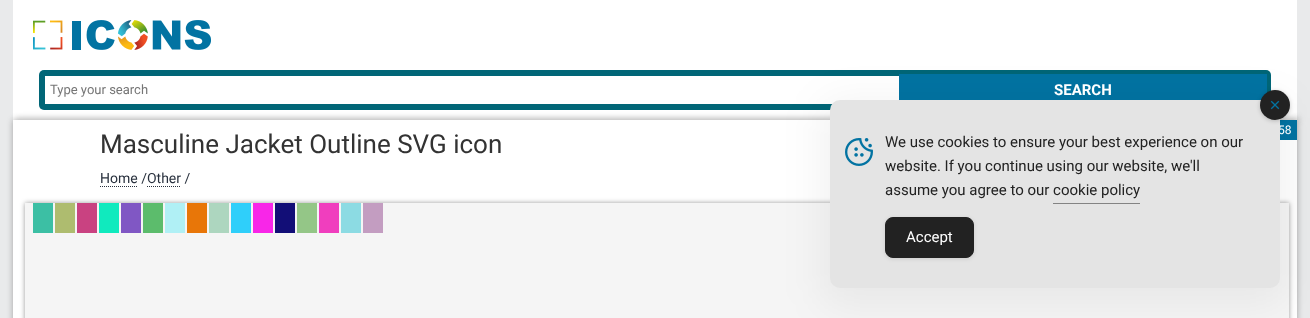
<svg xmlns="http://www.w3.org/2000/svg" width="1310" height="318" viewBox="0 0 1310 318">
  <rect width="100%" height="100%" fill="#e9eaeb"/>
  <path d="M13 0h1284v120H13z" fill="#fff"/>
  <image x="33" y="20" width="178" height="30" href="img/1.png"/>
  <path d="M16 119h1284v1H16z" fill="#00000080" filter="blur(3px)"/>
  <rect x="39" y="70" width="1232" height="40" rx="5" fill="#016677"/>
  <path d="M45 76h854v28H45z" fill="#fff"/>
  <path d="M899 74h368v26H899z" fill="#0273a2"/>
  <path d="M13 120h1284v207H13z" fill="#0000004d" filter="blur(3px)"/>
  <path d="M13 120h1284v198H13z" fill="#fff"/>
  <path d="M1280 120h17v20H1280z" fill="#0273a2"/>
  <path d="M100 186.5H137.5" fill="none" stroke="#28303d" stroke-dasharray="1 1"/>
  <path d="M147 186.5H181" fill="none" stroke="#28303d" stroke-dasharray="1 1"/>
  <path d="M25 203h1264v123H25z" fill="#00000066" filter="blur(2.5px)"/>
  <path d="M25 203h1264v115H25z" fill="#f5f5f5"/>
  <path d="M33 203h20v30H33z" fill="#3cbfa4"/>
  <path d="M55 203h20v30H55z" fill="#aebc6f"/>
  <path d="M77 203h20v30H77z" fill="#c94281"/>
  <path d="M99 203h20v30H99z" fill="#10eabe"/>
  <path d="M121 203h20v30H121z" fill="#8057c4"/>
  <path d="M143 203h20v30H143z" fill="#5cbc6c"/>
  <path d="M165 203h20v30H165z" fill="#b0f0f5"/>
  <path d="M187 203h20v30H187z" fill="#e87608"/>
  <path d="M209 203h20v30H209z" fill="#add6bf"/>
  <path d="M231 203h20v30H231z" fill="#2fcffa"/>
  <path d="M253 203h20v30H253z" fill="#f826e8"/>
  <path d="M275 203h20v30H275z" fill="#120e77"/>
  <path d="M297 203h20v30H297z" fill="#94c687"/>
  <path d="M319 203h20v30H319z" fill="#f03ebe"/>
  <path d="M341 203h20v30H341z" fill="#8cdbe3"/>
  <path d="M363 203h20v30H363z" fill="#c39dc1"/>
  <rect x="820" y="100" width="470" height="208" rx="20" fill="#0000000d" filter="blur(20px)"/>
  <text x="50" y="94" font-family="Roboto" font-size="13" fill="#757575">Type your search</text>
  <text x="1054" y="95" font-family="Roboto" font-size="15" font-weight="bold" fill="#fff">SEARCH</text>
  <text x="1278" y="134" font-family="Roboto" font-size="12" fill="#fff">58</text>
  <text x="100" y="153" font-family="Roboto" font-size="26" fill="#333">Masculine Jacket Outline SVG icon</text>
  <text x="100" y="183" font-family="Roboto" font-size="14" fill="#28303d">Home /Other /</text>
  <rect x="830" y="100" width="450" height="188" rx="10" fill="#e4e4e4"/>
  <rect x="1260" y="91" width="30" height="30" rx="15" fill="#00000033" filter="blur(2px)"/>
  <circle cx="1275" cy="105" r="15" fill="#222"/>
  <image x="1270" y="100" width="10" height="10" href="img/2.png"/>
  <image x="845" y="138" width="28" height="28" href="img/3.png"/>
  <g font-family="Roboto" font-size="15" fill="#222">
    <text x="885" y="147">We use cookies to ensure your best experience on our</text>
    <text x="885" y="171">website. If you continue using our website, we'll</text>
    <text x="885" y="195">assume you agree to our cookie policy</text>
  </g>
  <path d="M1053 203h87v1H1053z" fill="#838383"/>
  <rect x="885" y="218" width="89" height="41" rx="8" fill="#0000001a" filter="blur(2px)"/>
  <rect x="885.5" y="217.5" width="88" height="40" rx="7.5" fill="#222" stroke="#222"/>
  <text x="906" y="242" font-family="Roboto" font-size="15" fill="#fff">Accept</text>
</svg>
